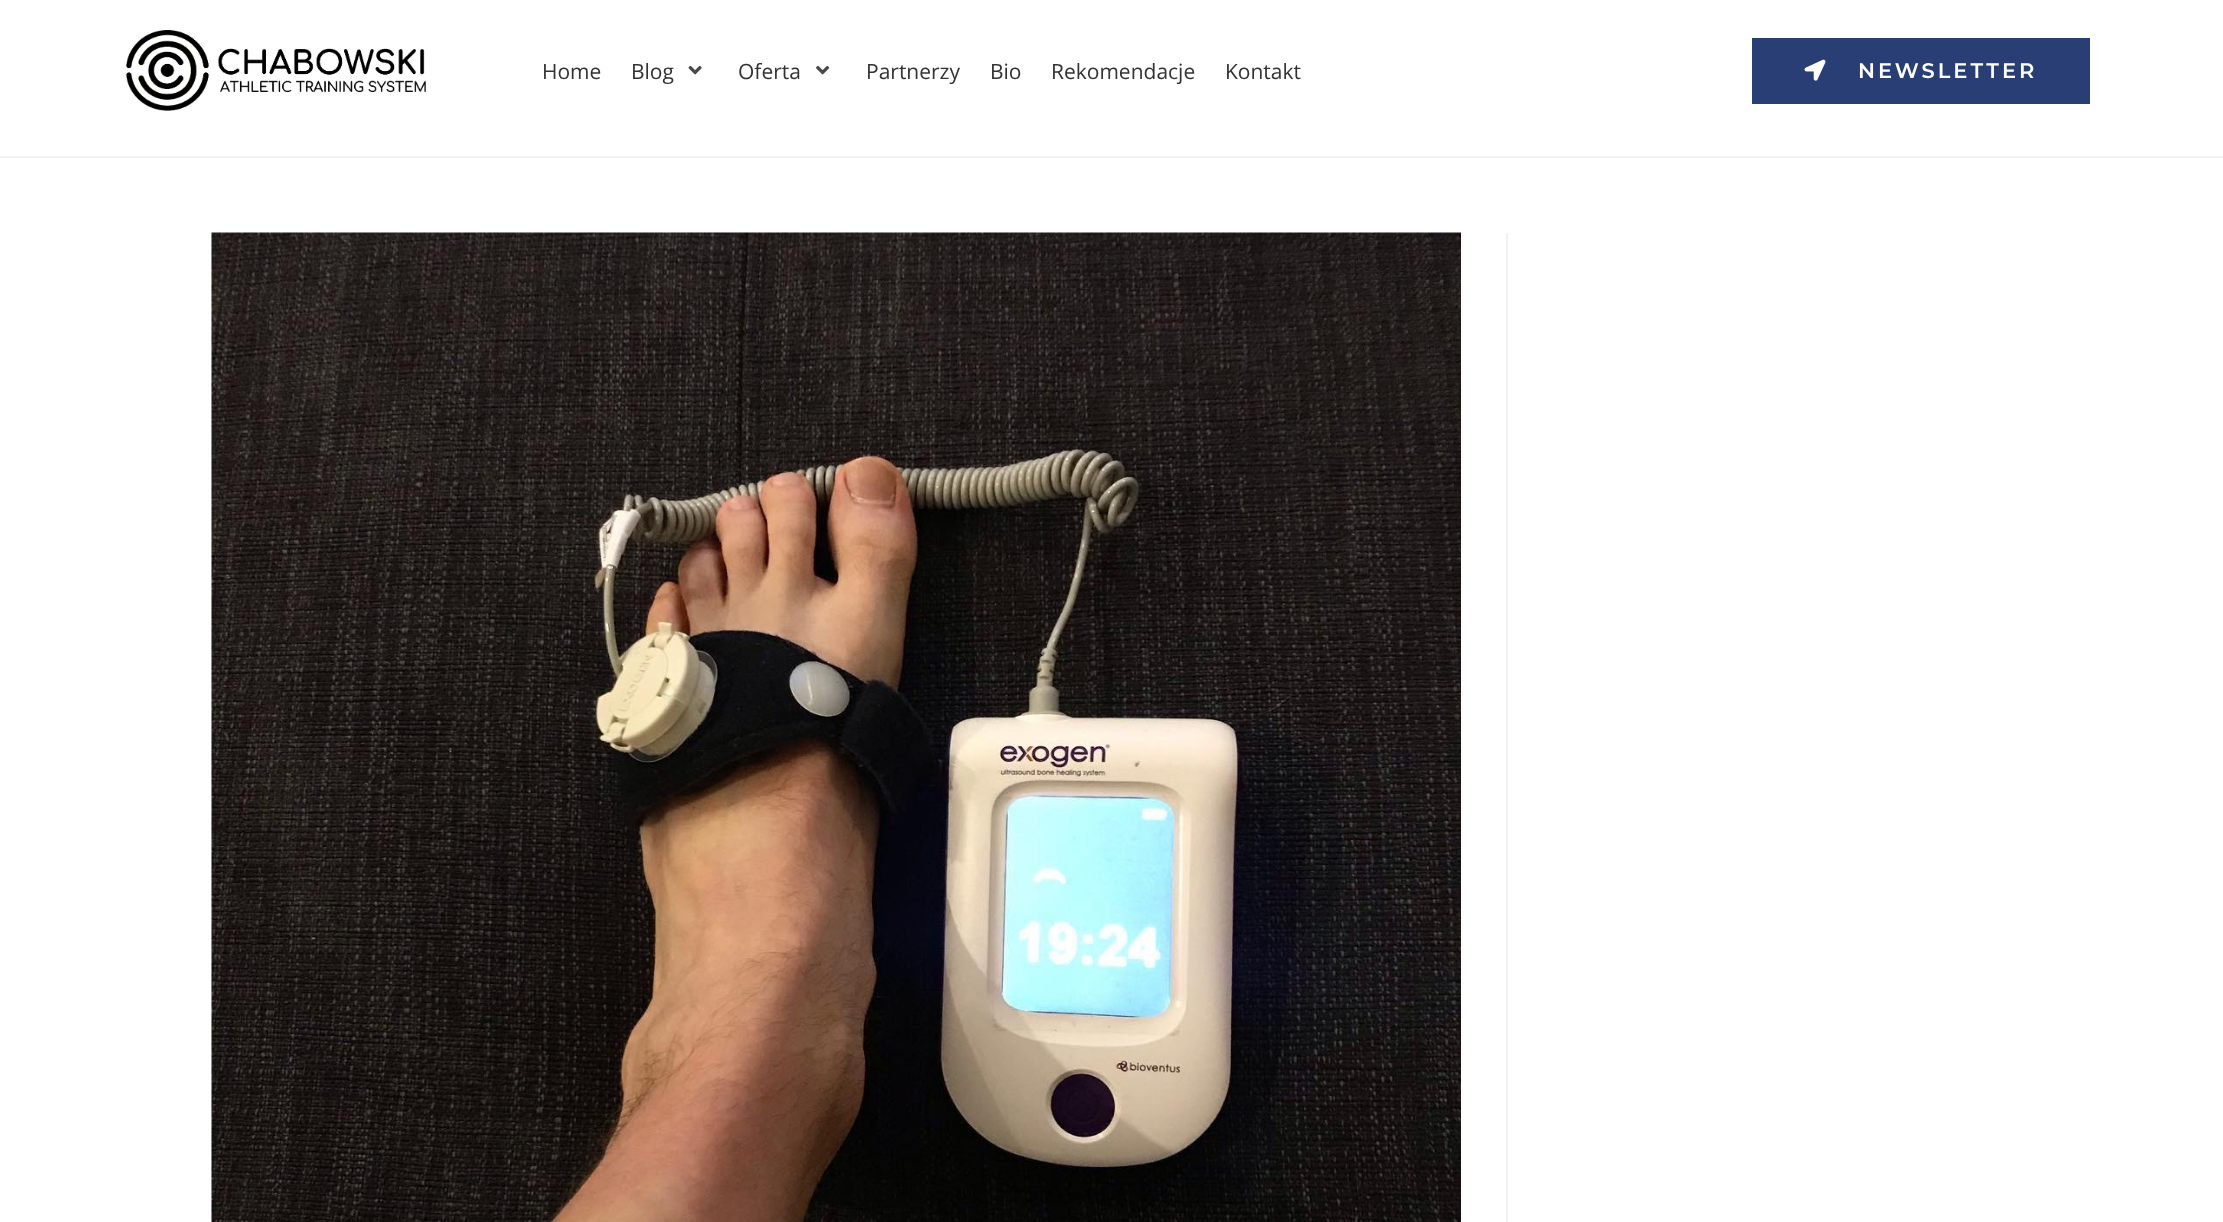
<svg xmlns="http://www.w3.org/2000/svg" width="2223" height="1222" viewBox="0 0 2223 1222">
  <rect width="100%" height="100%" fill="#fff"/>
  <path d="M0 156h2223v2H0z" fill="#f1f1f1"/>
  <image x="126" y="30" width="300" height="81" href="img/1.png"/>
  <image x="688" y="65" width="14" height="10" href="img/2.png"/>
  <image x="816" y="65" width="14" height="10" href="img/3.png"/>
  <path d="M1752 38h338v66H1752z" fill="#283e74"/>
  <image x="1804" y="59" width="22" height="22" href="img/4.png"/>
  <path d="M1506 233h2v989H1506z" fill="#f1f1f1"/>
  <image x="211" y="232" width="1250" height="990" href="img/5.png"/>
  <g font-family="Open Sans" font-size="21" fill="#333">
    <text x="542" y="79">Home</text>
    <text x="631" y="79">Blog</text>
    <text x="738" y="79">Oferta</text>
    <text x="866" y="79">Partnerzy</text>
    <text x="990" y="79">Bio</text>
    <text x="1051" y="79">Rekomendacje</text>
    <text x="1225" y="79">Kontakt</text>
  </g>
  <text x="1858" y="78" font-family="Montserrat" font-size="21" font-weight="600" letter-spacing="3" fill="#fff">NEWSLETTER</text>
</svg>
